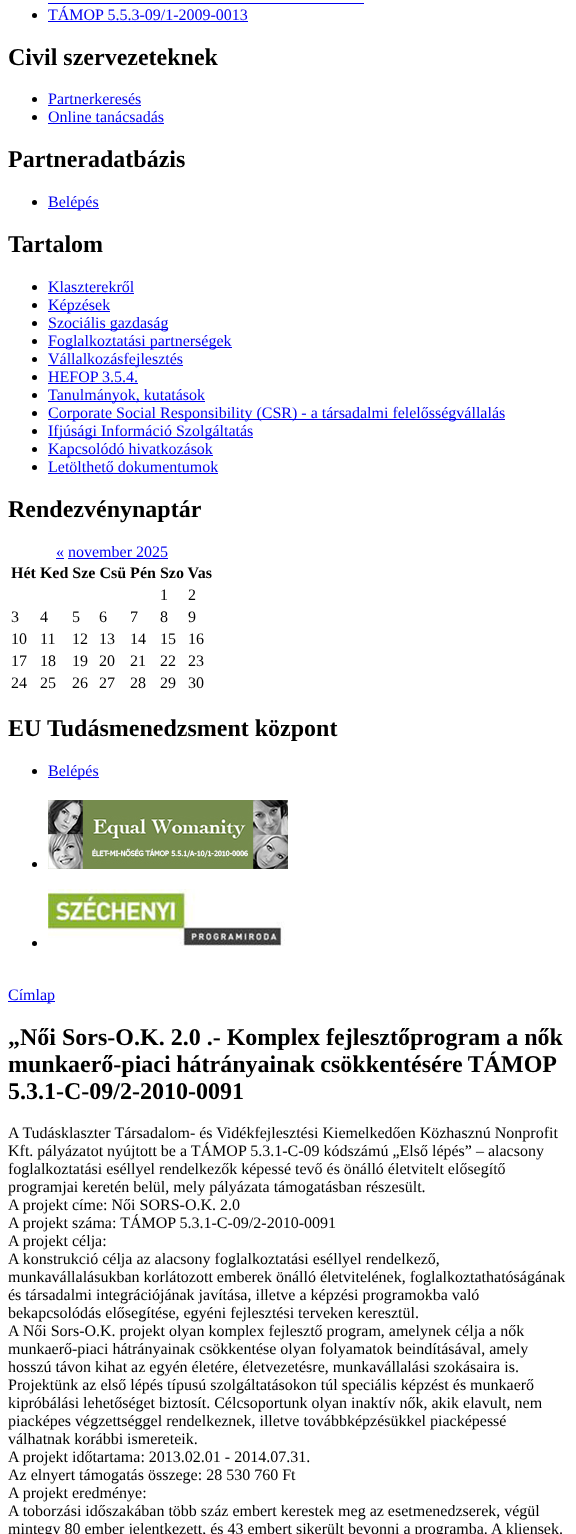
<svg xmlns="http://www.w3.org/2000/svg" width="576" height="1534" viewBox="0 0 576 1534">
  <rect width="100%" height="100%" fill="#fff"/>
  <path d="M48 3h316v1H48z" fill="#00e"/>
  <circle cx="34.5" cy="15.5" r="2.5" fill="#000"/>
  <path d="M48 21h200v1H48z" fill="#00e"/>
  <circle cx="34.5" cy="99.5" r="2.5" fill="#000"/>
  <path d="M48 105h93v1H48z" fill="#00e"/>
  <circle cx="34.5" cy="117.5" r="2.5" fill="#000"/>
  <path d="M48 123h116v1H48z" fill="#00e"/>
  <circle cx="34.5" cy="202.5" r="2.5" fill="#000"/>
  <path d="M48 208h51v1H48z" fill="#00e"/>
  <circle cx="34.5" cy="287.5" r="2.5" fill="#000"/>
  <path d="M48 293h86v1H48z" fill="#00e"/>
  <circle cx="34.5" cy="305.5" r="2.5" fill="#000"/>
  <path d="M48 311h62v1H48z" fill="#00e"/>
  <circle cx="34.5" cy="323.5" r="2.5" fill="#000"/>
  <path d="M48 329h120v1H48z" fill="#00e"/>
  <circle cx="34.5" cy="341.5" r="2.5" fill="#000"/>
  <path d="M48 347h184v1H48z" fill="#00e"/>
  <circle cx="34.5" cy="359.5" r="2.5" fill="#000"/>
  <path d="M48 365h135v1H48z" fill="#00e"/>
  <circle cx="34.5" cy="377.5" r="2.5" fill="#000"/>
  <path d="M48 383h90v1H48z" fill="#00e"/>
  <circle cx="34.5" cy="395.5" r="2.5" fill="#000"/>
  <path d="M48 401h157v1H48z" fill="#00e"/>
  <circle cx="34.5" cy="413.5" r="2.5" fill="#000"/>
  <path d="M48 419h457v1H48z" fill="#00e"/>
  <circle cx="34.5" cy="431.5" r="2.5" fill="#000"/>
  <path d="M48 437h205v1H48z" fill="#00e"/>
  <circle cx="34.5" cy="449.5" r="2.5" fill="#000"/>
  <path d="M48 455h165v1H48z" fill="#00e"/>
  <circle cx="34.5" cy="467.5" r="2.5" fill="#000"/>
  <path d="M48 473h170v1H48z" fill="#00e"/>
  <path d="M56 558h8v1H56z" fill="#00e"/>
  <path d="M68 558h100v1H68z" fill="#00e"/>
  <circle cx="34.5" cy="771.5" r="2.5" fill="#000"/>
  <path d="M48 777h51v1H48z" fill="#00e"/>
  <circle cx="34.5" cy="864.5" r="2.5" fill="#000"/>
  <image x="48" y="800" width="240" height="69" href="img/1.png"/>
  <circle cx="34.5" cy="943.5" r="2.5" fill="#000"/>
  <image x="48" y="889" width="237" height="57" href="img/2.png"/>
  <path d="M8 1001h47v1H8z" fill="#00e"/>
  <text x="48" y="20" font-family="Liberation Serif" font-size="16" fill="#00e">TÁMOP 5.5.3-09/1-2009-0013</text>
  <text x="8" y="65" font-family="Liberation Serif" font-size="24" font-weight="bold" fill="#000">Civil szervezeteknek</text>
  <g font-family="Liberation Serif" font-size="16" fill="#00e">
    <text x="48" y="104">Partnerkeresés</text>
    <text x="48" y="122">Online tanácsadás</text>
  </g>
  <text x="8" y="167" font-family="Liberation Serif" font-size="24" font-weight="bold" fill="#000">Partneradatbázis</text>
  <text x="48" y="207" font-family="Liberation Serif" font-size="16" fill="#00e">Belépés</text>
  <text x="8" y="252" font-family="Liberation Serif" font-size="24" font-weight="bold" fill="#000">Tartalom</text>
  <g font-family="Liberation Serif" font-size="16" fill="#00e">
    <text x="48" y="292">Klaszterekről</text>
    <text x="48" y="310">Képzések</text>
    <text x="48" y="328">Szociális gazdaság</text>
    <text x="48" y="346">Foglalkoztatási partnerségek</text>
    <text x="48" y="364">Vállalkozásfejlesztés</text>
    <text x="48" y="382">HEFOP 3.5.4.</text>
    <text x="48" y="400">Tanulmányok, kutatások</text>
    <text x="48" y="418">Corporate Social Responsibility (CSR) - a társadalmi felelősségvállalás</text>
    <text x="48" y="436">Ifjúsági Információ Szolgáltatás</text>
    <text x="48" y="454">Kapcsolódó hivatkozások</text>
    <text x="48" y="472">Letölthető dokumentumok</text>
  </g>
  <text x="8" y="517" font-family="Liberation Serif" font-size="24" font-weight="bold" fill="#000">Rendezvénynaptár</text>
  <text x="56" y="557" font-family="Liberation Serif" font-size="16" fill="#00e">« november 2025</text>
  <text x="11" y="578" font-family="Liberation Serif" font-size="16" font-weight="bold" fill="#000">Hét Ked Sze Csü Pén Szo Vas</text>
  <g font-family="Liberation Serif" font-size="16" fill="#000">
    <text x="160" y="600">1</text>
    <text x="188" y="600">2</text>
    <text x="11" y="622">3</text>
    <text x="40" y="622">4</text>
    <text x="72" y="622">5</text>
    <text x="99" y="622">6</text>
    <text x="130" y="622">7</text>
    <text x="160" y="622">8</text>
    <text x="188" y="622">9</text>
    <text x="11" y="644">10</text>
    <text x="40" y="644">11</text>
    <text x="72" y="644">12</text>
    <text x="99" y="644">13</text>
    <text x="130" y="644">14</text>
    <text x="160" y="644">15</text>
    <text x="188" y="644">16</text>
    <text x="11" y="666">17</text>
    <text x="40" y="666">18</text>
    <text x="72" y="666">19</text>
    <text x="99" y="666">20</text>
    <text x="130" y="666">21</text>
    <text x="160" y="666">22</text>
    <text x="188" y="666">23</text>
    <text x="11" y="688">24</text>
    <text x="40" y="688">25</text>
    <text x="72" y="688">26</text>
    <text x="99" y="688">27</text>
    <text x="130" y="688">28</text>
    <text x="160" y="688">29</text>
    <text x="188" y="688">30</text>
  </g>
  <text x="8" y="736" font-family="Liberation Serif" font-size="24" font-weight="bold" fill="#000">EU Tudásmenedzsment központ</text>
  <g font-family="Liberation Serif" font-size="16" fill="#00e">
    <text x="48" y="776">Belépés</text>
    <text x="8" y="1000">Címlap</text>
  </g>
  <g font-family="Liberation Serif" font-size="24" font-weight="bold" fill="#000">
    <text x="8" y="1045">„Női Sors-O.K. 2.0 .- Komplex fejlesztőprogram a nők</text>
    <text x="8" y="1072" word-spacing="-0.5">munkaerő-piaci hátrányainak csökkentésére TÁMOP</text>
    <text x="8" y="1099">5.3.1-C-09/2-2010-0091</text>
  </g>
  <g font-family="Liberation Serif" font-size="16" fill="#000">
    <text x="8" y="1138">A Tudásklaszter Társadalom- és Vidékfejlesztési Kiemelkedően Közhasznú Nonprofit</text>
    <text x="8" y="1156">Kft. pályázatot nyújtott be a TÁMOP 5.3.1-C-09 kódszámú „Első lépés” – alacsony</text>
    <text x="8" y="1174">foglalkoztatási eséllyel rendelkezők képessé tevő és önálló életvitelt elősegítő</text>
    <text x="8" y="1192">programjai keretén belül, mely pályázata támogatásban részesült.</text>
    <text x="8" y="1210">A projekt címe: Női SORS-O.K. 2.0</text>
    <text x="8" y="1228">A projekt száma: TÁMOP 5.3.1-C-09/2-2010-0091</text>
    <text x="8" y="1246">A projekt célja:</text>
    <text x="8" y="1264">A konstrukció célja az alacsony foglalkoztatási eséllyel rendelkező,</text>
    <text x="8" y="1282">munkavállalásukban korlátozott emberek önálló életvitelének, foglalkoztathatóságának</text>
    <text x="8" y="1300">és társadalmi integrációjának javítása, illetve a képzési programokba való</text>
    <text x="8" y="1318">bekapcsolódás elősegítése, egyéni fejlesztési terveken keresztül.</text>
    <text x="8" y="1336">A Női Sors-O.K. projekt olyan komplex fejlesztő program, amelynek célja a nők</text>
    <text x="8" y="1354">munkaerő-piaci hátrányainak csökkentése olyan folyamatok beindításával, amely</text>
    <text x="8" y="1372">hosszú távon kihat az egyén életére, életvezetésre, munkavállalási szokásaira is.</text>
    <text x="8" y="1390">Projektünk az első lépés típusú szolgáltatásokon túl speciális képzést és munkaerő</text>
    <text x="8" y="1408">kipróbálási lehetőséget biztosít. Célcsoportunk olyan inaktív nők, akik elavult, nem</text>
    <text x="8" y="1426">piacképes végzettséggel rendelkeznek, illetve továbbképzésükkel piacképessé</text>
    <text x="8" y="1444">válhatnak korábbi ismereteik.</text>
    <text x="8" y="1462">A projekt időtartama: 2013.02.01 - 2014.07.31.</text>
    <text x="8" y="1480">Az elnyert támogatás összege: 28 530 760 Ft</text>
    <text x="8" y="1498">A projekt eredménye:</text>
    <text x="8" y="1516">A toborzási időszakában több száz embert kerestek meg az esetmenedzserek, végül</text>
    <text x="8" y="1534">mintegy 80 ember jelentkezett, és 43 embert sikerült bevonni a programba. A kliensek.</text>
  </g>
</svg>
